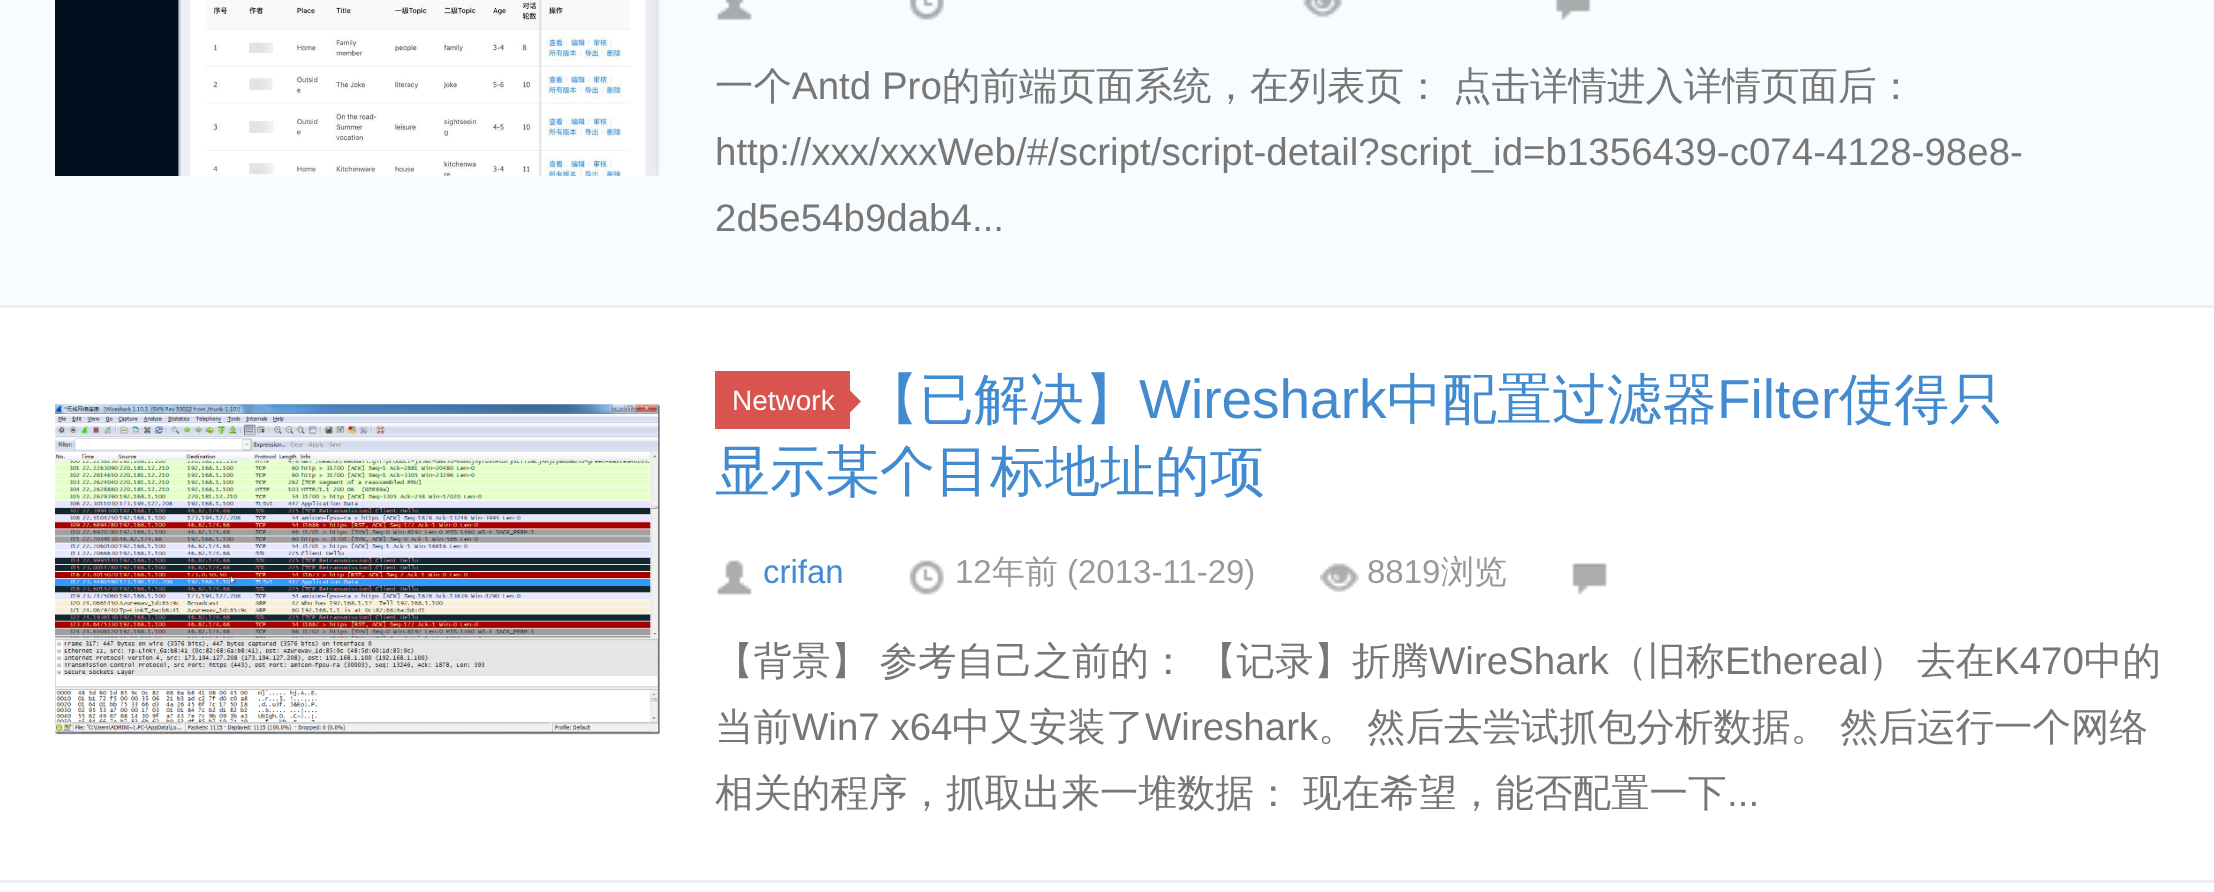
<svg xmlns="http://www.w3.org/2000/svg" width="2214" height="892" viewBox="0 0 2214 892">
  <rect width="100%" height="100%" fill="#eee"/>
  <path d="M0 0h2214v305H0z" fill="#f8fcfe"/>
  <image x="55" y="0" width="605" height="176" href="img/1.png"/>
  <image x="717" y="0" width="35" height="21" href="img/2.png"/>
  <image x="909" y="0" width="35" height="21" href="img/3.png"/>
  <image x="1303" y="0" width="39" height="18" href="img/4.png"/>
  <image x="1555" y="0" width="36" height="20" href="img/5.png"/>
  <path d="M0 308h2214v572H0z" fill="#fff"/>
  <image x="55" y="404" width="605" height="331" href="img/6.png"/>
  <path d="M715 371h135v58H715z" fill="#d9534f"/>
  <path d="M850 412.5V390.5L861 401.5Z" fill="#d9534f"/>
  <image x="717" y="560" width="35" height="35" href="img/7.png"/>
  <image x="909" y="560" width="36" height="35" href="img/8.png"/>
  <image x="1320" y="563" width="39" height="30" href="img/9.png"/>
  <image x="1572" y="563" width="35" height="32" href="img/10.png"/>
  <path d="M0 883h2214v9H0z" fill="#fff"/>
  <text x="715" y="99" font-family="WenQuanYi Zen Hei" font-size="38.5" font-weight="500" fill="#777">一个</text>
  <text x="792" y="99" font-family="Liberation Sans" font-size="38.5" fill="#777">Antd Pro</text>
  <g font-family="WenQuanYi Zen Hei" font-size="38.5" font-weight="500" fill="#777">
    <text x="942" y="99">的前端页面系统，在列表页：</text>
    <text x="1453" y="99">点击详情进入详情页面后：</text>
  </g>
  <g font-family="Liberation Sans" font-size="38.5" fill="#777">
    <text x="715" y="165">http://xxx/xxxWeb/#/script/script-detail?script_id=b1356439-c074-4128-98e8-</text>
    <text x="715" y="231">2d5e54b9dab4...</text>
  </g>
  <text x="732" y="410" font-family="Liberation Sans" font-size="28" fill="#fff">Network</text>
  <text x="864" y="418" font-family="WenQuanYi Zen Hei" font-size="55" font-weight="500" fill="#428bd1">【已解决】</text>
  <text x="1139" y="418" font-family="Liberation Sans" font-size="55" fill="#428bd1">Wireshark</text>
  <text x="1387" y="418" font-family="WenQuanYi Zen Hei" font-size="55" font-weight="500" fill="#428bd1">中配置过滤器</text>
  <text x="1717" y="418" font-family="Liberation Sans" font-size="55" fill="#428bd1">Filter</text>
  <g font-family="WenQuanYi Zen Hei" font-size="55" font-weight="500" fill="#428bd1">
    <text x="1839" y="418">使得只</text>
    <text x="715" y="490">显示某个目标地址的项</text>
  </g>
  <text x="763" y="583" font-family="Liberation Sans" font-size="33" fill="#428bd1">crifan</text>
  <text x="955" y="583" font-family="Liberation Sans" font-size="33" fill="#999">12</text>
  <text x="992" y="583" font-family="WenQuanYi Zen Hei" font-size="33" font-weight="500" fill="#999">年前</text>
  <g font-family="Liberation Sans" font-size="33" fill="#999">
    <text x="1067" y="583">(2013-11-29)</text>
    <text x="1367" y="583">8819</text>
  </g>
  <text x="1441" y="583" font-family="WenQuanYi Zen Hei" font-size="33" font-weight="500" fill="#999">浏览</text>
  <text x="715" y="674" word-spacing="-1" font-family="WenQuanYi Zen Hei" font-size="38.5" font-weight="500" fill="#777">【背景】 参考自己之前的： 【记录】折腾</text>
  <text x="1429" y="674" font-family="Liberation Sans" font-size="38.5" fill="#777">WireShark</text>
  <text x="1609" y="674" font-family="WenQuanYi Zen Hei" font-size="38.5" font-weight="500" fill="#777">（旧称</text>
  <text x="1725" y="674" font-family="Liberation Sans" font-size="38.5" fill="#777">Ethereal</text>
  <text x="1868" y="674" word-spacing="-1" font-family="WenQuanYi Zen Hei" font-size="38.5" font-weight="500" fill="#777">） 去在</text>
  <text x="1994" y="674" font-family="Liberation Sans" font-size="38.5" fill="#777">K470</text>
  <g font-family="WenQuanYi Zen Hei" font-size="38.5" font-weight="500" fill="#777">
    <text x="2084" y="674">中的</text>
    <text x="715" y="740">当前</text>
  </g>
  <text x="792" y="740" font-family="Liberation Sans" font-size="38.5" fill="#777">Win7 x64</text>
  <text x="952" y="740" font-family="WenQuanYi Zen Hei" font-size="38.5" font-weight="500" fill="#777">中又安装了</text>
  <text x="1145" y="740" font-family="Liberation Sans" font-size="38.5" fill="#777">Wireshark</text>
  <g font-family="WenQuanYi Zen Hei" font-size="38.5" font-weight="500" fill="#777">
    <text x="1318" y="740">。</text>
    <text x="1367" y="740">然后去尝试抓包分析数据。</text>
    <text x="1840" y="740">然后运行一个网络</text>
    <text x="715" y="806">相关的程序，抓取出来一堆数据：</text>
    <text x="1303" y="806">现在希望，能否配置一下</text>
  </g>
  <text x="1727" y="806" font-family="Liberation Sans" font-size="38.5" fill="#777">...</text>
</svg>
